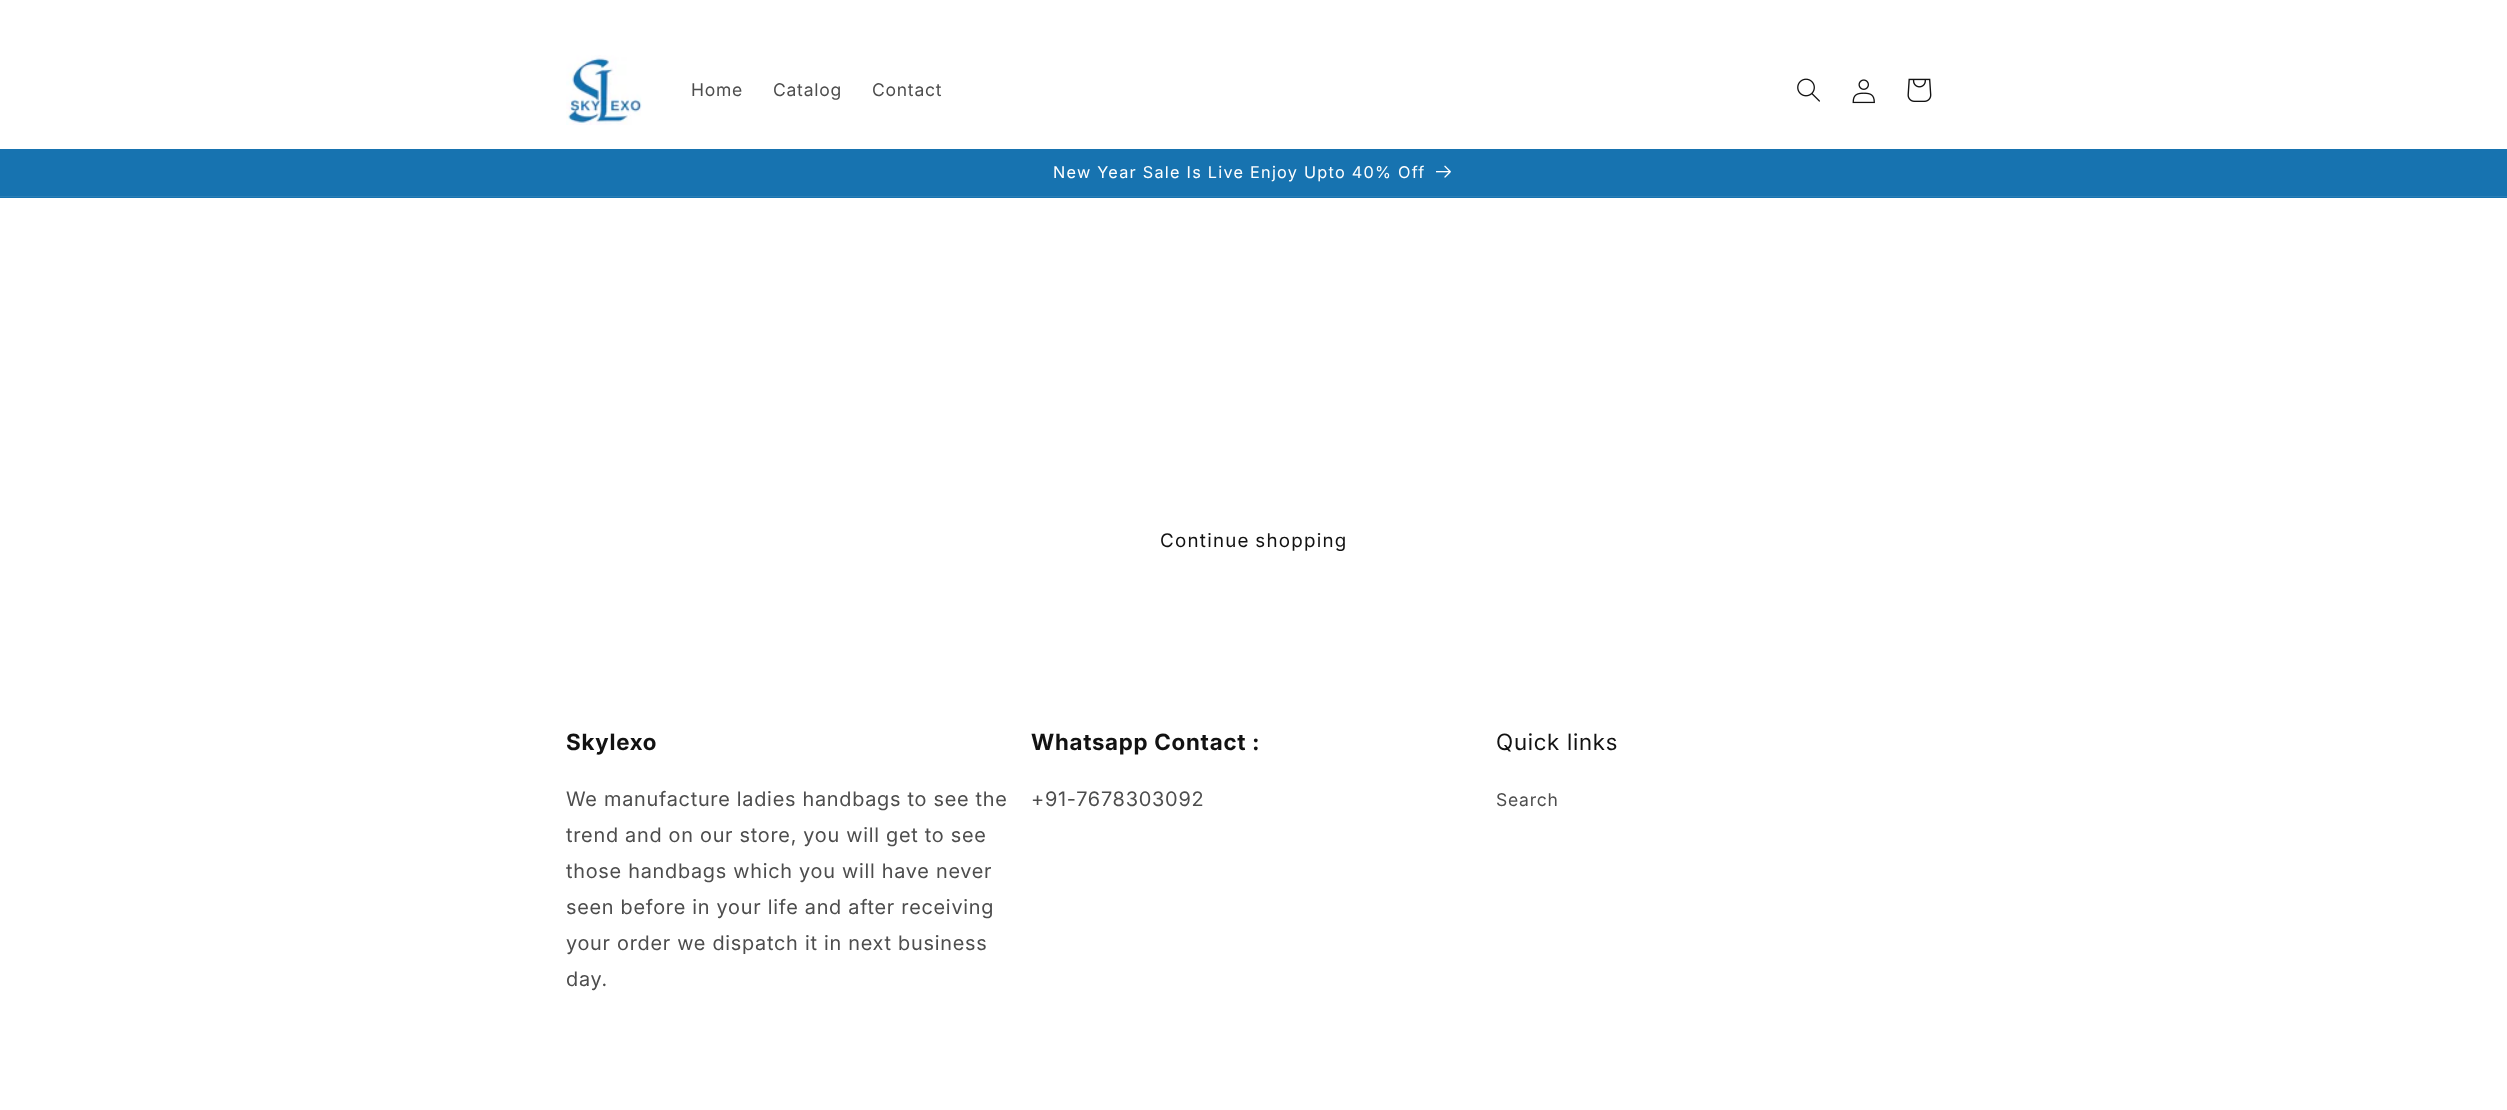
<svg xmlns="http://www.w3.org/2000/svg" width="2507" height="1110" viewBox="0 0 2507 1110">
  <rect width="100%" height="100%" fill="#fff"/>
  <image x="566" y="55" width="76" height="70" href="img/1.png"/>
  <image x="1797" y="78" width="23" height="24" href="img/2.png"/>
  <image x="1852" y="79" width="23" height="25" href="img/3.png"/>
  <image x="1907" y="78" width="25" height="24" href="img/4.png"/>
  <path d="M0 149h2507v49H0z" fill="#1773b0"/>
  <path d="M0 196h2507v1H0z" fill="#2a7eb6"/>
  <image x="1436" y="165" width="15" height="13" href="img/5.png"/>
  <g font-family="Inter" font-size="17.5" letter-spacing="0.75" fill="#4d4d4d">
    <text x="691" y="96">Home</text>
    <text x="773" y="96">Catalog</text>
    <text x="872" y="96">Contact</text>
  </g>
  <text x="1053" y="178" font-family="Inter" font-size="16.25" letter-spacing="1.25" fill="#fff">New Year Sale Is Live Enjoy Upto 40% Off</text>
  <text x="1160" y="547" word-spacing="-1" font-family="Inter" font-size="18.75" letter-spacing="1.25" fill="#121212">Continue shopping</text>
  <text x="566" y="750" font-family="Inter" font-size="22.5" font-weight="bold" letter-spacing="0.75" fill="#121212">Skylexo</text>
  <g font-family="'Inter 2'" font-size="20" letter-spacing="0.75" fill="#4d4d4d">
    <text x="566" y="806">We manufacture ladies handbags to see the</text>
    <text x="566" y="842">trend and on our store, you will get to see</text>
    <text x="566" y="878">those handbags which you will have never</text>
    <text x="566" y="914">seen before in your life and after receiving</text>
    <text x="566" y="950">your order we dispatch it in next business</text>
    <text x="566" y="986">day.</text>
  </g>
  <text x="1031" y="750" font-family="Inter" font-size="22.5" font-weight="bold" letter-spacing="0.75" fill="#121212">Whatsapp Contact :</text>
  <text x="1031" y="806" font-family="'Inter 2'" font-size="20" letter-spacing="0.75" fill="#4d4d4d">+91-7678303092</text>
  <text x="1496" y="750" font-family="'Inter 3'" font-size="22.5" letter-spacing="0.75" fill="#121212">Quick links</text>
  <text x="1496" y="806" font-family="Inter" font-size="17.5" letter-spacing="0.75" fill="#4d4d4d">Search</text>
</svg>
